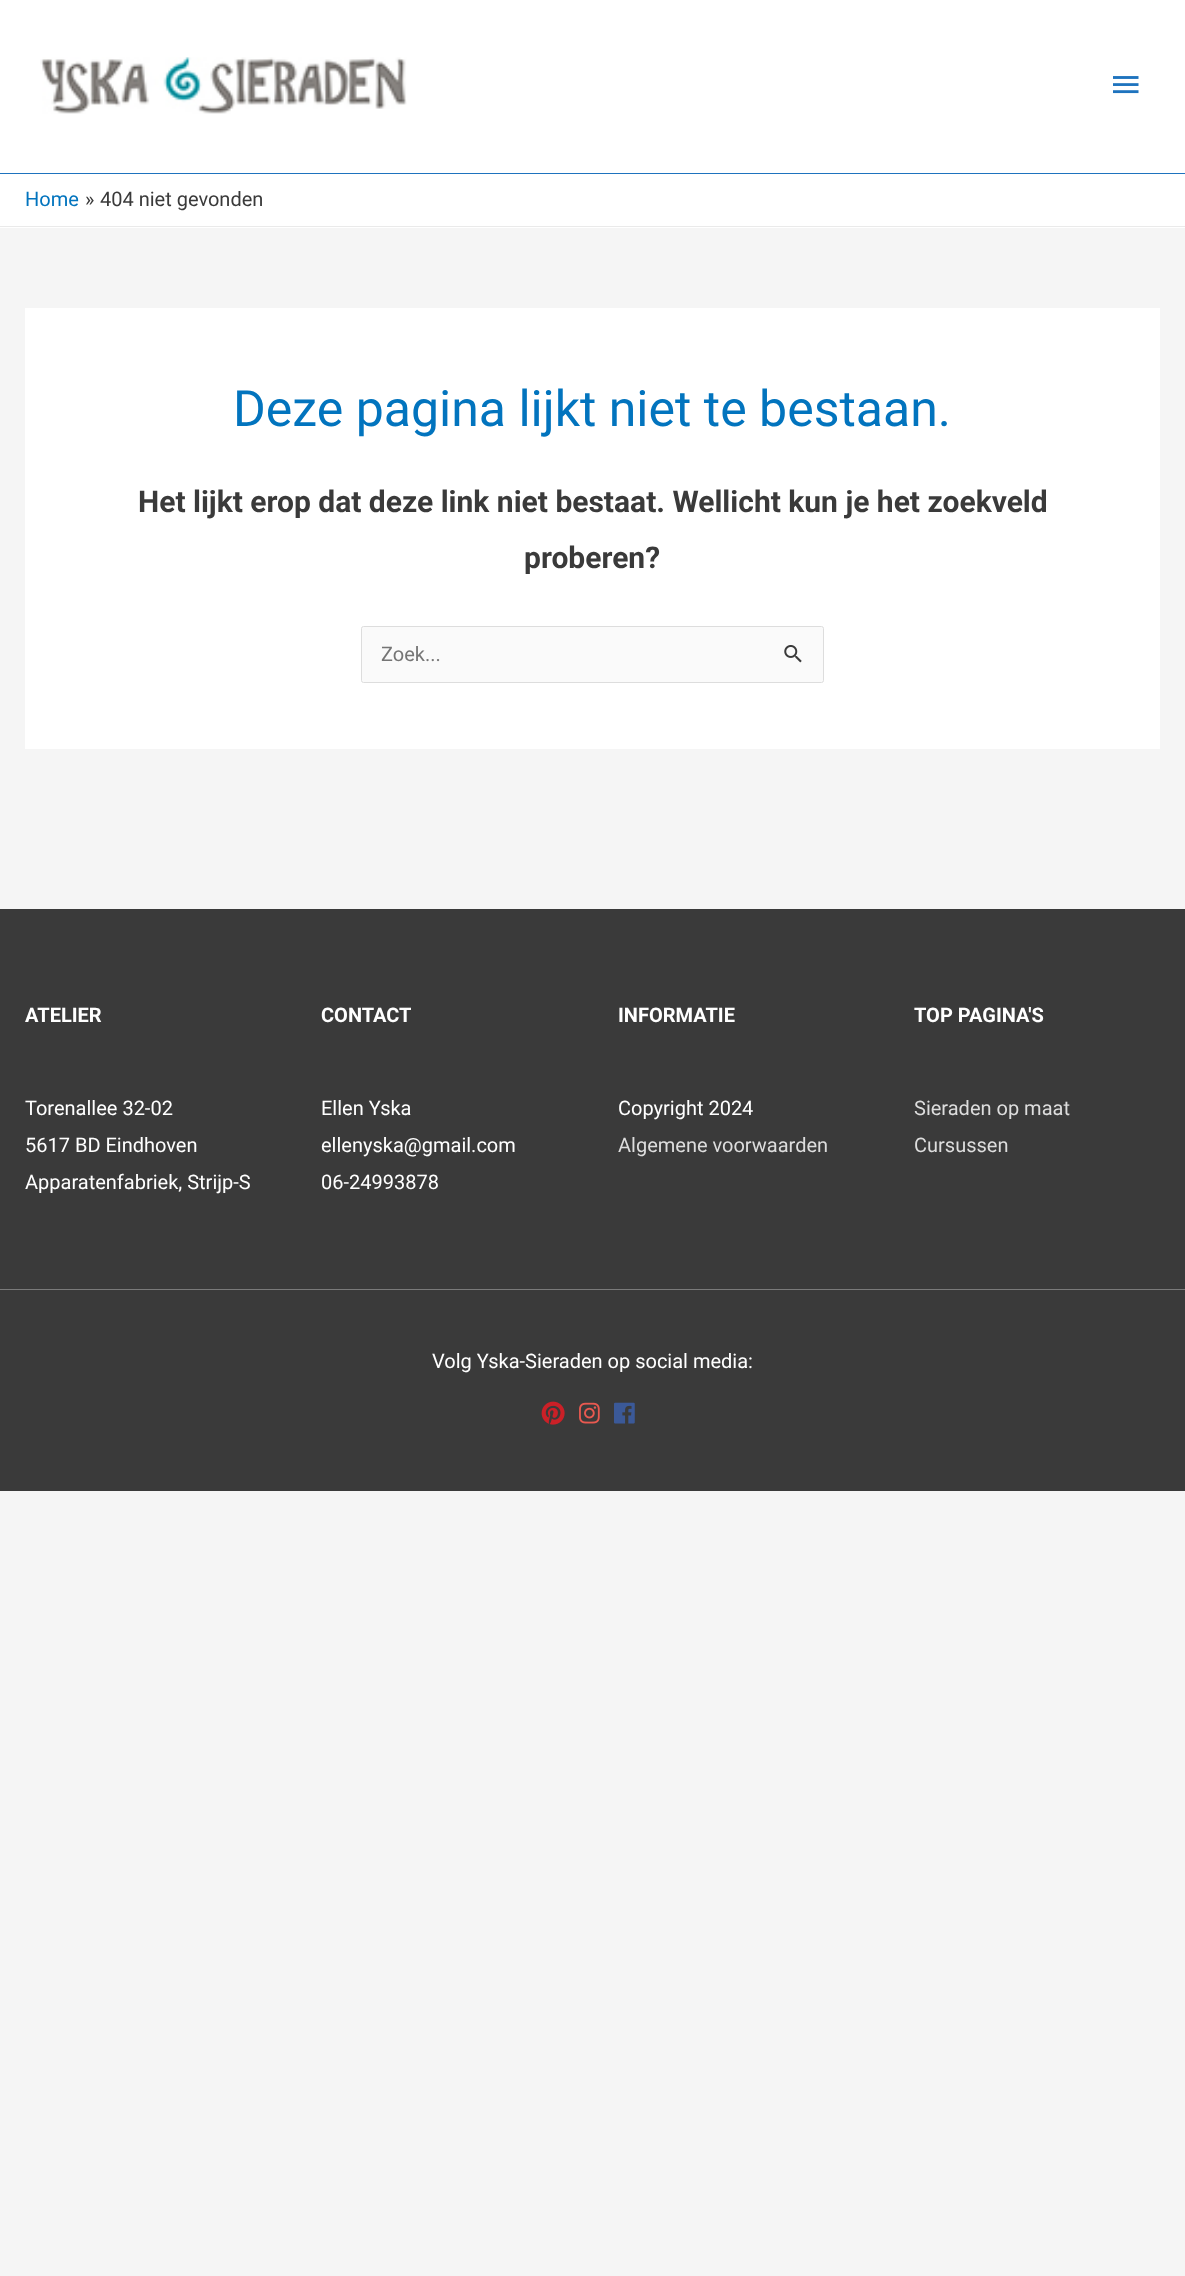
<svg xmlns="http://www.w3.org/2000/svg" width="1185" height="2276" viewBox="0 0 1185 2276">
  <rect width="100%" height="100%" fill="#f5f5f5"/>
  <path d="M0 0h1185v173H0z" fill="#fff"/>
  <path d="M0 173h1185v1H0z" fill="#1e73be"/>
  <image x="40" y="57" width="367" height="57" href="img/1.png"/>
  <image x="1113" y="76" width="26" height="18" href="img/2.png"/>
  <path d="M0 174h1185v54H0z" fill="#fff"/>
  <path d="M0 226h1185v1H0z" fill="#eaeaea"/>
  <path d="M25 308h1135v441H25z" fill="#fff"/>
  <rect x="361.5" y="626.5" width="462" height="56" rx="2" fill="#fafafa" stroke="#ddd"/>
  <image x="784" y="645" width="18" height="18" href="img/3.png"/>
  <path d="M0 909h1185v380H0z" fill="#3a3a3a"/>
  <path d="M0 1289h1185v1H0z" fill="#7a7a7a"/>
  <path d="M0 1290h1185v201H0z" fill="#3a3a3a"/>
  <image x="541" y="1401" width="24" height="24" href="img/4.png"/>
  <image x="579" y="1402" width="21" height="22" href="img/5.png"/>
  <image x="614" y="1402" width="21" height="22" href="img/6.png"/>
  <text x="25" y="206" font-family="Roboto" font-size="20" fill="#0274be">Home</text>
  <g font-family="Roboto" font-size="20" fill="#3a3a3a">
    <text x="85" y="206">»</text>
    <text x="100" y="206">404 niet gevonden</text>
  </g>
  <text x="233" y="426" font-family="Roboto" font-size="50" fill="#0274be">Deze pagina lijkt niet te bestaan.</text>
  <g font-family="Roboto" font-size="30" font-weight="bold" fill="#3a3a3a">
    <text x="138" y="512">Het lijkt erop dat deze link niet bestaat. Wellicht kun je het zoekveld</text>
    <text x="524" y="568">proberen?</text>
  </g>
  <text x="381" y="661" font-family="Roboto" font-size="20" fill="#757575">Zoek...</text>
  <text x="25" y="1022" font-family="Roboto" font-size="20" font-weight="bold" fill="#fff">ATELIER</text>
  <g font-family="Roboto" font-size="20" fill="#fff">
    <text x="25" y="1115">Torenallee 32-02</text>
    <text x="25" y="1152">5617 BD Eindhoven</text>
    <text x="25" y="1189">Apparatenfabriek, Strijp-S</text>
  </g>
  <text x="321" y="1022" font-family="Roboto" font-size="20" font-weight="bold" fill="#fff">CONTACT</text>
  <g font-family="Roboto" font-size="20" fill="#fff">
    <text x="321" y="1115">Ellen Yska</text>
    <text x="321" y="1152">ellenyska@gmail.com</text>
    <text x="321" y="1189">06-24993878</text>
  </g>
  <text x="618" y="1022" font-family="Roboto" font-size="20" font-weight="bold" fill="#fff">INFORMATIE</text>
  <text x="618" y="1115" font-family="Roboto" font-size="20" fill="#fff">Copyright 2024</text>
  <text x="618" y="1152" font-family="Roboto" font-size="20" fill="#ddd">Algemene voorwaarden</text>
  <text x="914" y="1022" font-family="Roboto" font-size="20" font-weight="bold" fill="#fff">TOP PAGINA'S</text>
  <g font-family="Roboto" font-size="20" fill="#ddd">
    <text x="914" y="1115">Sieraden op maat</text>
    <text x="914" y="1152">Cursussen</text>
  </g>
  <text x="432" y="1368" font-family="Roboto" font-size="20" fill="#fff">Volg Yska-Sieraden op social media:</text>
</svg>
